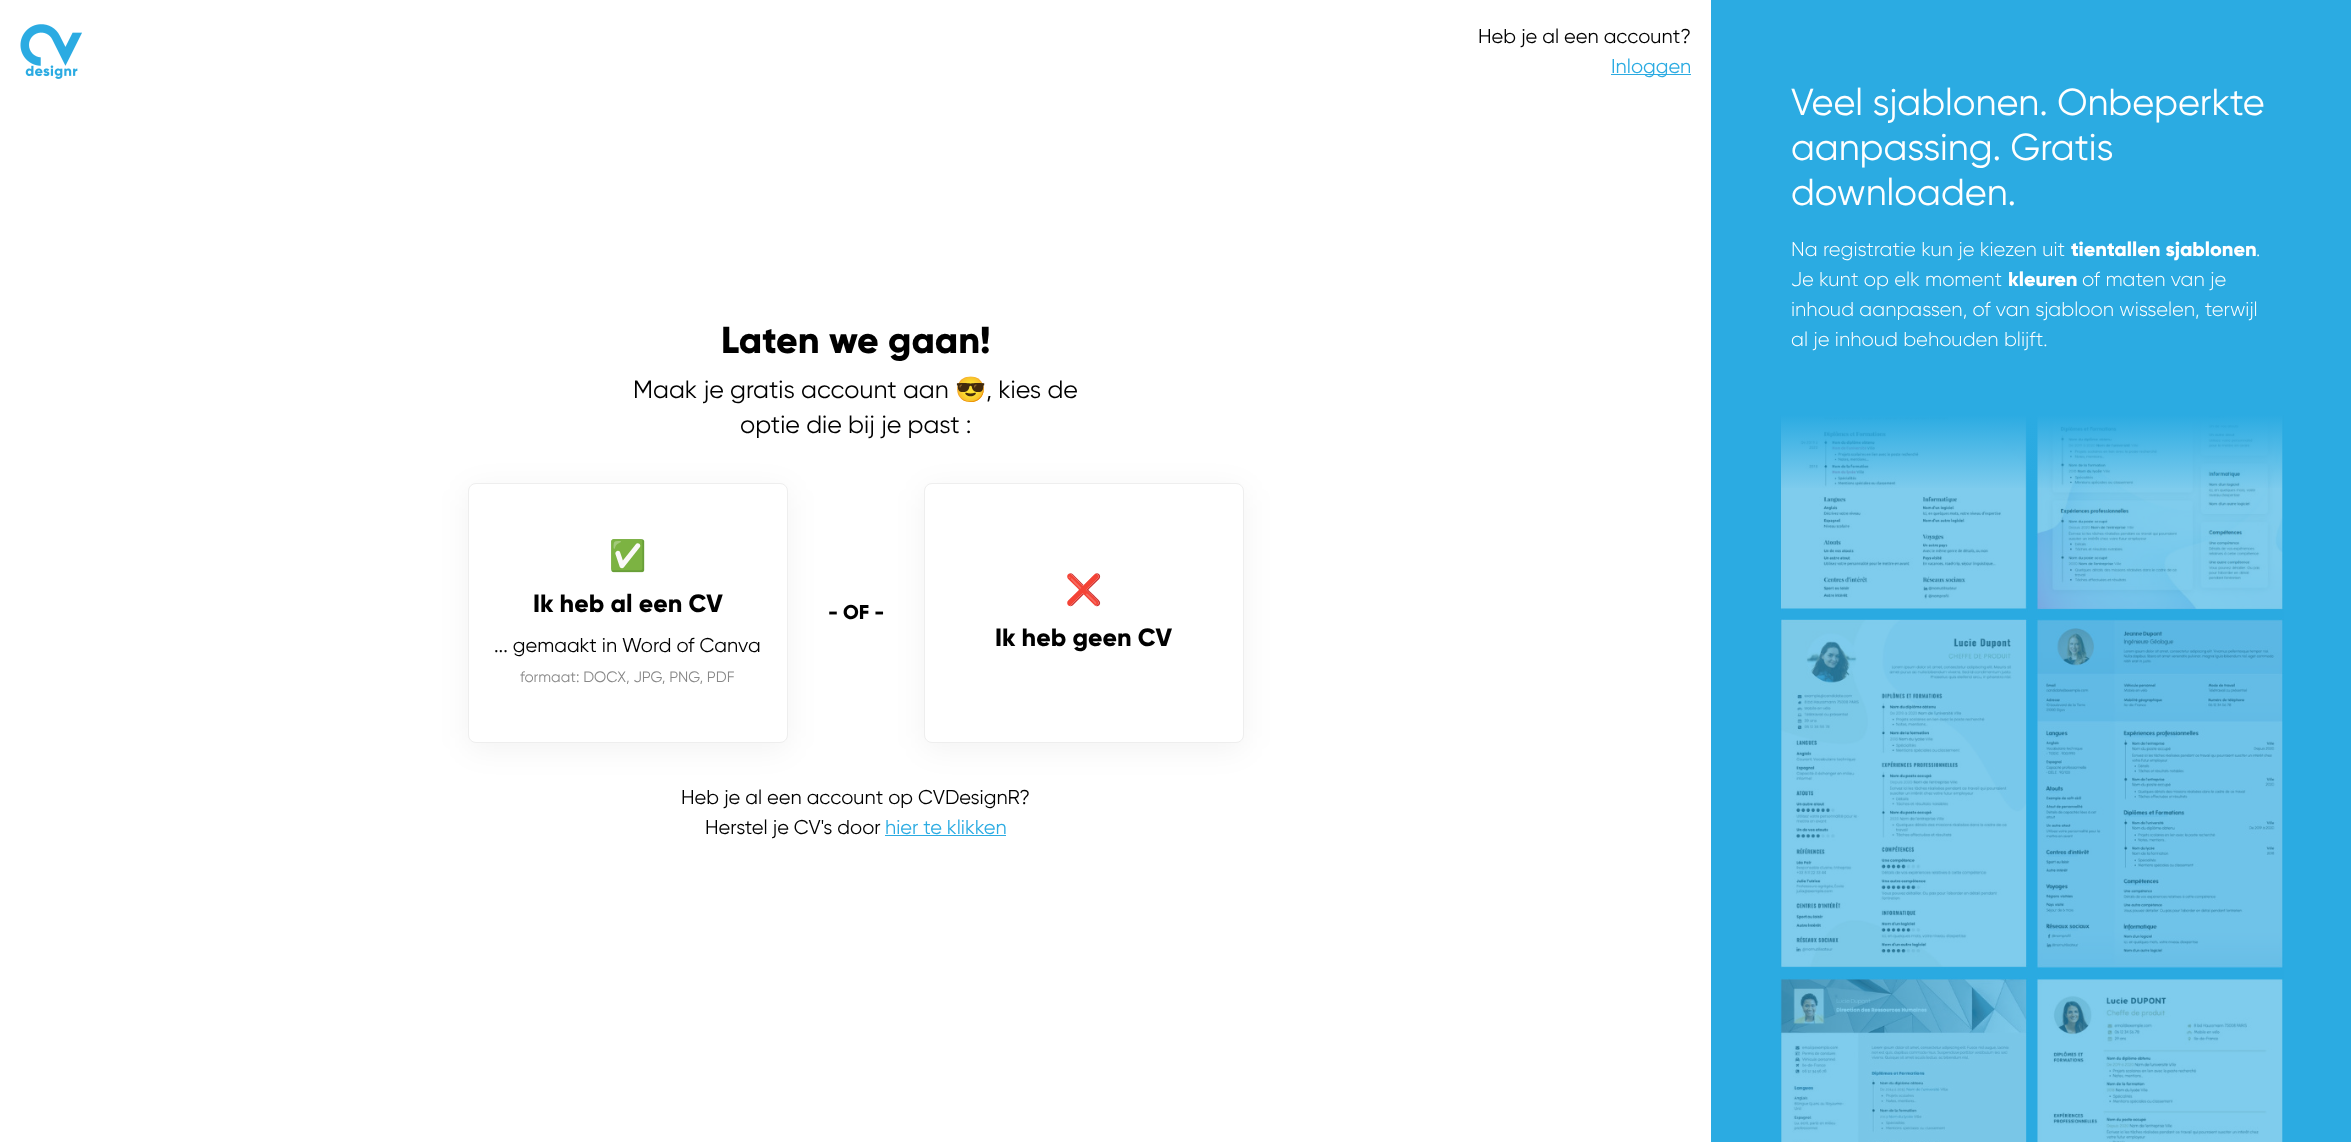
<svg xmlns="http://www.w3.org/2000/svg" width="2351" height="1142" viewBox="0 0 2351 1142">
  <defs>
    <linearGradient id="g1" gradientUnits="userSpaceOnUse" x1="2031" y1="415" x2="2031" y2="490"><stop offset="0" stop-color="#2babe2"/><stop offset="1" stop-color="#2babe2" stop-opacity="0"/></linearGradient>
  </defs>
  <rect width="100%" height="100%" fill="#fff"/>
  <image x="20" y="24" width="62" height="55" href="img/1.png"/>
  <path d="M1611 74h80v1H1611z" fill="#2babe2"/>
  <rect x="468" y="489" width="320" height="260" rx="8" fill="#0000000d" filter="blur(15.5px)"/>
  <rect x="468.5" y="483.5" width="319" height="259" rx="7.5" fill="#fff" stroke="#eee"/>
  <rect x="924" y="489" width="320" height="260" rx="8" fill="#0000000d" filter="blur(15.5px)"/>
  <rect x="924.5" y="483.5" width="319" height="259" rx="7.5" fill="#fff" stroke="#eee"/>
  <path d="M885 835h121v1H885z" fill="#2babe2"/>
  <path d="M1711 0h640v1142H1711z" fill="#2babe2"/>
  <image x="1780" y="415" width="504" height="727" href="img/2.png"/>
  <path d="M1781 415h502v73H1781z" fill="url(#g1)"/>
  <text x="1478" y="43" font-family="Gilroy" font-size="20" fill="#000">Heb je al een account?</text>
  <text x="1611" y="73" font-family="Gilroy" font-size="20" fill="#2babe2">Inloggen</text>
  <text x="721" y="353" font-family="Gilroy" font-size="37.5" font-weight="800" fill="#000">Laten we gaan!</text>
  <text x="633" y="398" font-family="Gilroy" font-size="25" fill="#000">Maak je gratis account aan</text>
  <text x="955" y="398" font-family="Noto Color Emoji" font-size="25" fill="#000">😎</text>
  <g font-family="Gilroy" font-size="25" fill="#000">
    <text x="986" y="398">, kies de</text>
    <text x="740" y="433">optie die bij je past :</text>
  </g>
  <text x="609" y="566" font-family="Noto Color Emoji" font-size="30" fill="#000">✅</text>
  <text x="533" y="612" font-family="Gilroy" font-size="25" font-weight="800" fill="#000">Ik heb al een CV</text>
  <text x="494" y="652" font-family="Gilroy" font-size="20" fill="#000">... gemaakt in Word of Canva</text>
  <text x="520" y="682" font-family="Gilroy" font-size="15.1" fill="#888">formaat: DOCX, JPG, PNG, PDF</text>
  <text x="828" y="619" font-family="Gilroy" font-size="20" font-weight="800" fill="#000">- OF -</text>
  <text x="1065" y="600" font-family="Noto Color Emoji" font-size="30" fill="#000">❌</text>
  <text x="995" y="646" font-family="Gilroy" font-size="25" font-weight="800" fill="#000">Ik heb geen CV</text>
  <g font-family="Gilroy" font-size="20" fill="#000">
    <text x="681" y="804">Heb je al een account op CVDesignR?</text>
    <text x="705" y="834">Herstel je CV's door</text>
  </g>
  <text x="885" y="834" font-family="Gilroy" font-size="20" fill="#2babe2">hier te klikken</text>
  <g font-family="Gilroy" font-size="37.5" fill="#fff">
    <text x="1791" y="115">Veel sjablonen. Onbeperkte</text>
    <text x="1791" y="160">aanpassing. Gratis</text>
    <text x="1791" y="205">downloaden.</text>
  </g>
  <text x="1791" y="256" font-family="Gilroy" font-size="20" font-weight="300" fill="#fff">Na registratie kun je kiezen uit</text>
  <text x="2071" y="256" font-family="Gilroy" font-size="20" font-weight="800" fill="#fff">tientallen sjablonen</text>
  <g font-family="Gilroy" font-size="20" font-weight="300" fill="#fff">
    <text x="2256" y="256">.</text>
    <text x="1791" y="286">Je kunt op elk moment</text>
  </g>
  <text x="2008" y="286" font-family="Gilroy" font-size="20" font-weight="800" fill="#fff">kleuren</text>
  <g font-family="Gilroy" font-size="20" font-weight="300" fill="#fff">
    <text x="2082" y="286">of maten van je</text>
    <text x="1791" y="316">inhoud aanpassen, of van sjabloon wisselen, terwijl</text>
    <text x="1791" y="346">al je inhoud behouden blijft.</text>
  </g>
</svg>
